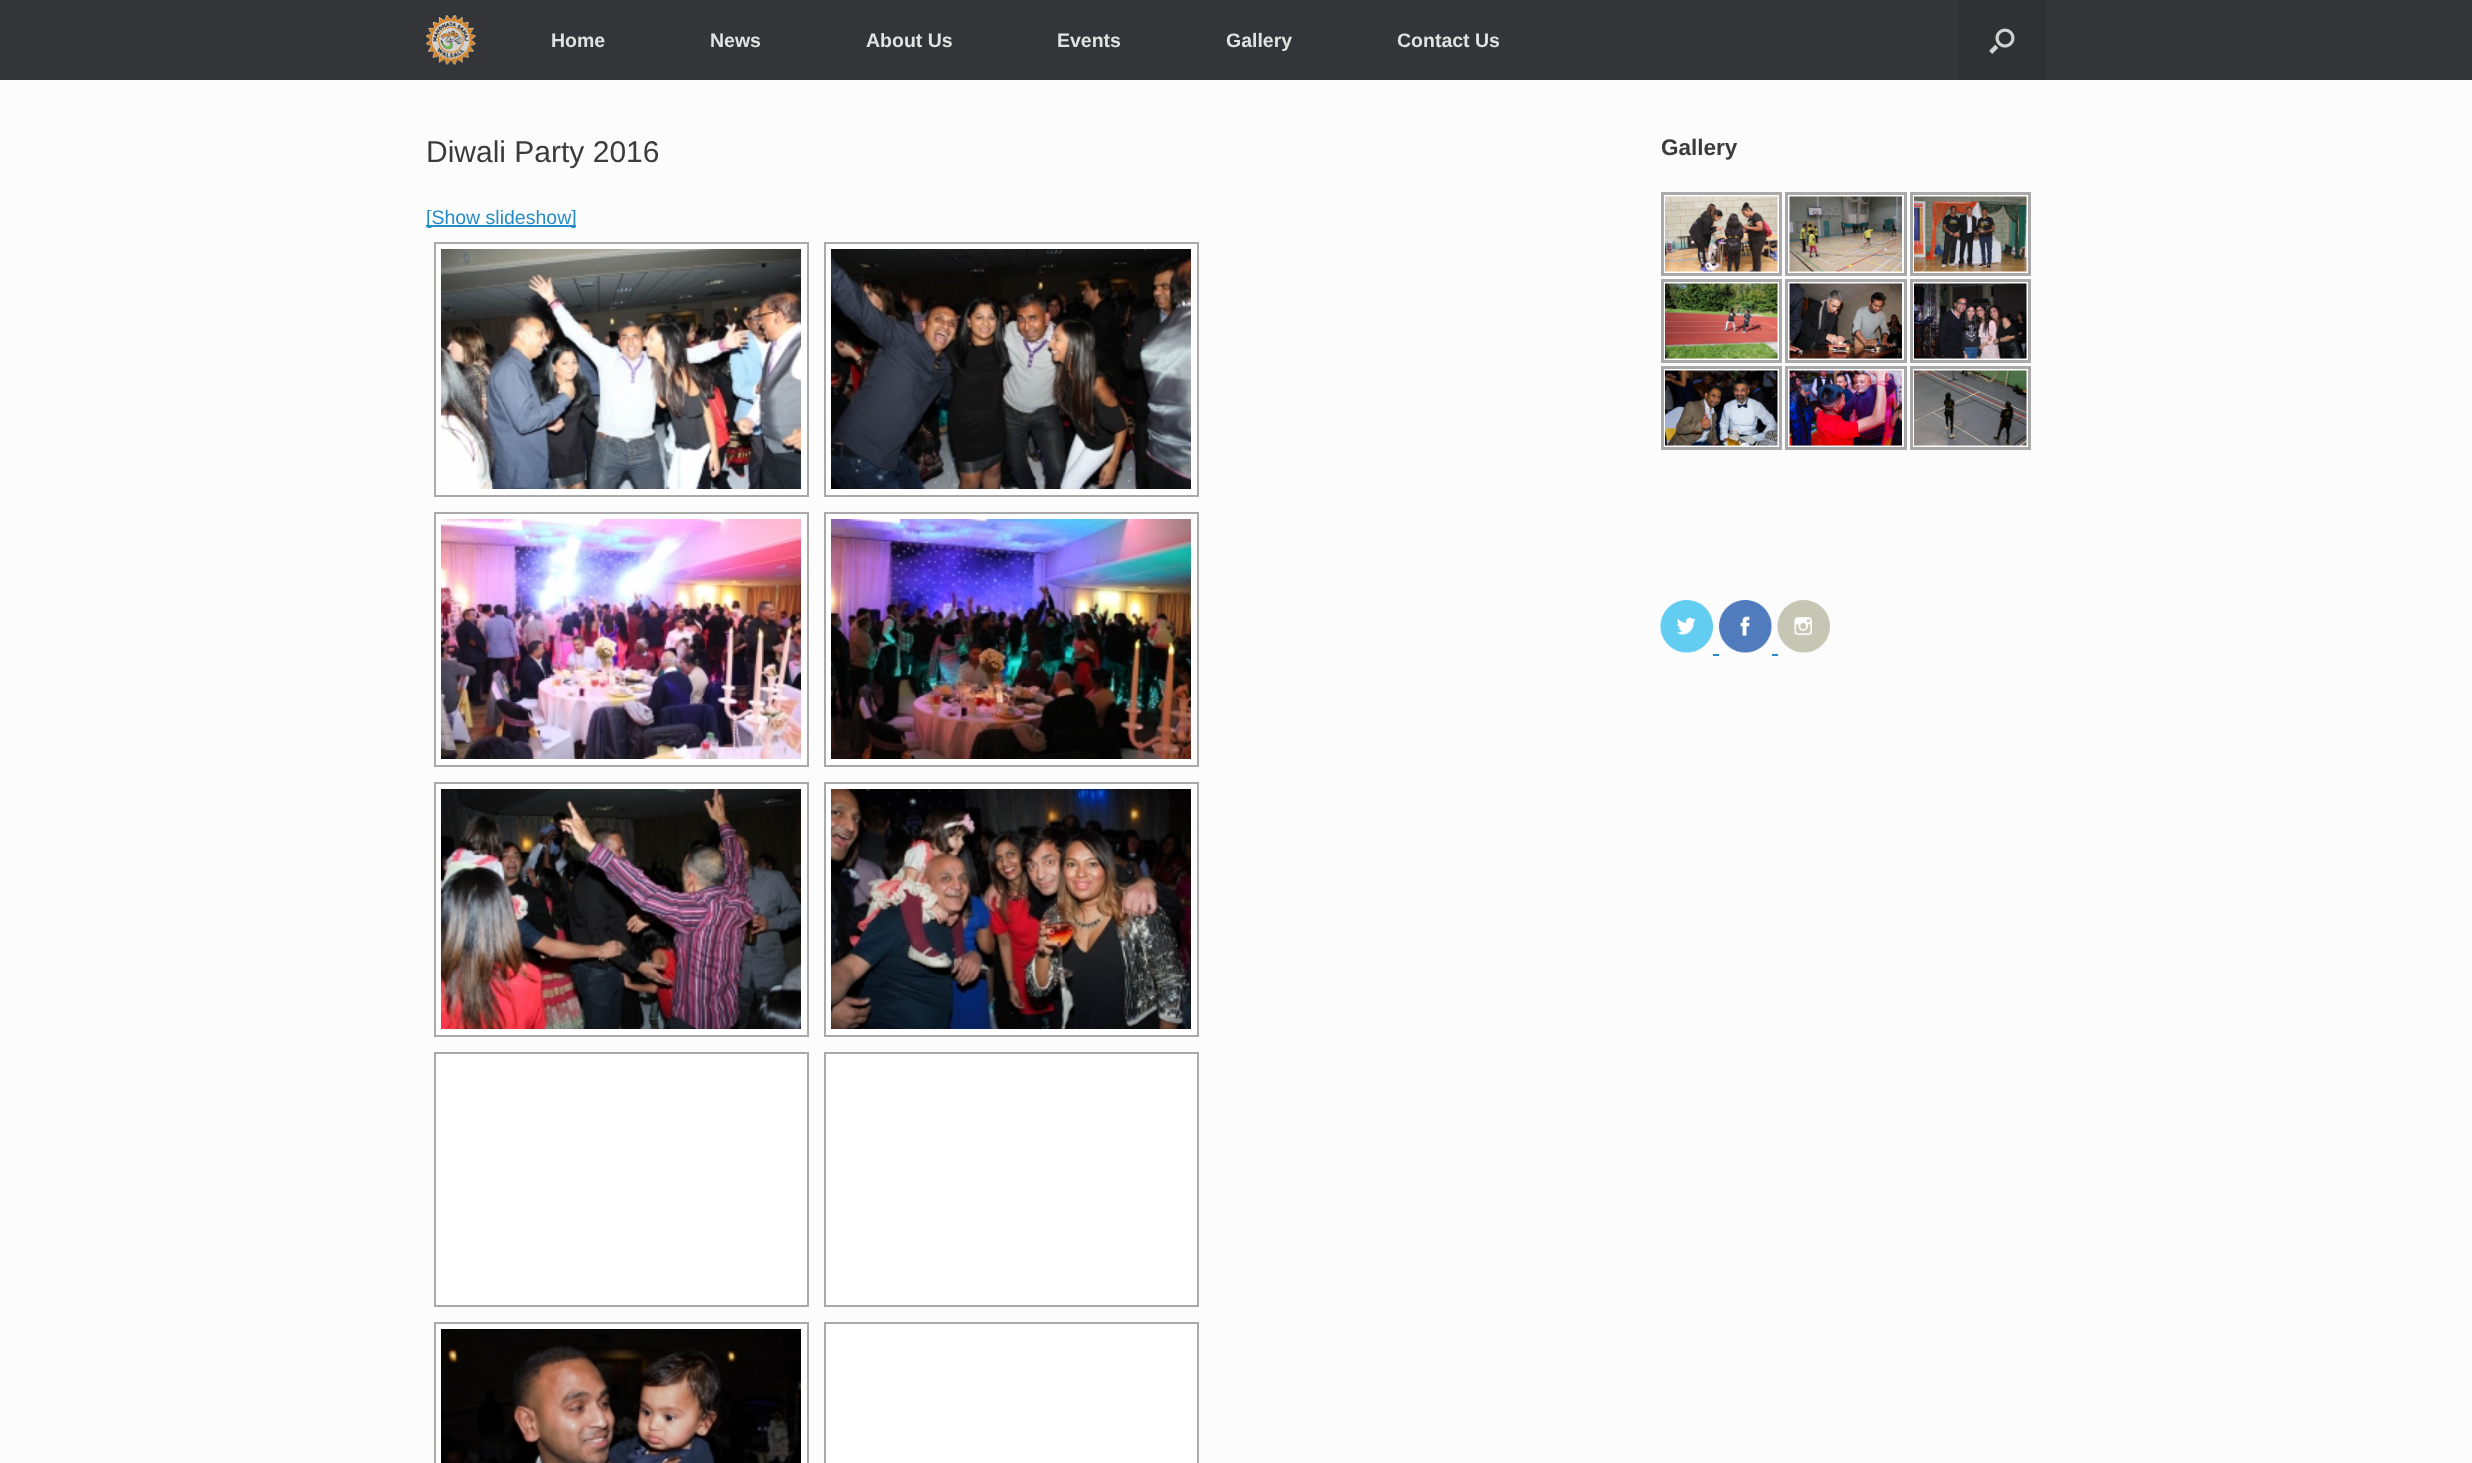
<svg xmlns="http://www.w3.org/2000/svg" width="2472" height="1463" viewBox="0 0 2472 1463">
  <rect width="100%" height="100%" fill="#fcfcfc"/>
  <path d="M0 0h2472v80H0z" fill="#343538"/>
  <image x="426" y="15" width="50" height="50" href="img/1.png"/>
  <path d="M1958 0h88v80H1958z" fill="#303134"/>
  <image x="1989" y="28" width="26" height="26" href="img/2.png"/>
  <path d="M426 225h150v2H426z" fill="#248cc8"/>
  <path d="M435 243h373v253H435z" fill="#fff" stroke="#a9a9a9" stroke-width="2"/>
  <image x="441" y="249" width="360" height="240" href="img/3.png"/>
  <path d="M825 243h373v253H825z" fill="#fff" stroke="#a9a9a9" stroke-width="2"/>
  <image x="831" y="249" width="360" height="240" href="img/4.png"/>
  <path d="M435 513h373v253H435z" fill="#fff" stroke="#a9a9a9" stroke-width="2"/>
  <image x="441" y="519" width="360" height="240" href="img/5.png"/>
  <path d="M825 513h373v253H825z" fill="#fff" stroke="#a9a9a9" stroke-width="2"/>
  <image x="831" y="519" width="360" height="240" href="img/6.png"/>
  <path d="M435 783h373v253H435z" fill="#fff" stroke="#a9a9a9" stroke-width="2"/>
  <image x="441" y="789" width="360" height="240" href="img/7.png"/>
  <path d="M825 783h373v253H825z" fill="#fff" stroke="#a9a9a9" stroke-width="2"/>
  <image x="831" y="789" width="360" height="240" href="img/8.png"/>
  <path d="M435 1053h373v253H435z" fill="#fff" stroke="#a9a9a9" stroke-width="2"/>
  <path d="M825 1053h373v253H825z" fill="#fff" stroke="#a9a9a9" stroke-width="2"/>
  <path d="M435 1323h373v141H435z" fill="#fff" stroke="#a9a9a9" stroke-width="2"/>
  <image x="441" y="1329" width="360" height="134" href="img/9.png"/>
  <path d="M825 1323h373v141H825z" fill="#fff" stroke="#a9a9a9" stroke-width="2"/>
  <path d="M1662.5 193.5h118v81H1662.5z" fill="none" stroke="#a9a9a9" stroke-width="3"/>
  <image x="1665" y="196" width="113" height="76" href="img/10.png"/>
  <path d="M1786.5 193.5h119v81H1786.5z" fill="none" stroke="#a9a9a9" stroke-width="3"/>
  <image x="1789" y="196" width="113" height="76" href="img/11.png"/>
  <path d="M1911.5 193.5h118v81H1911.5z" fill="none" stroke="#a9a9a9" stroke-width="3"/>
  <image x="1914" y="196" width="113" height="76" href="img/12.png"/>
  <path d="M1662.5 280.5h118v81H1662.5z" fill="none" stroke="#a9a9a9" stroke-width="3"/>
  <image x="1665" y="283" width="113" height="76" href="img/13.png"/>
  <path d="M1786.5 280.5h119v81H1786.5z" fill="none" stroke="#a9a9a9" stroke-width="3"/>
  <image x="1789" y="283" width="113" height="76" href="img/14.png"/>
  <path d="M1911.5 280.5h118v81H1911.5z" fill="none" stroke="#a9a9a9" stroke-width="3"/>
  <image x="1914" y="283" width="113" height="76" href="img/15.png"/>
  <path d="M1662.5 367.5h118v81H1662.5z" fill="none" stroke="#a9a9a9" stroke-width="3"/>
  <image x="1665" y="370" width="113" height="76" href="img/16.png"/>
  <path d="M1786.5 367.5h119v81H1786.5z" fill="none" stroke="#a9a9a9" stroke-width="3"/>
  <image x="1789" y="370" width="113" height="76" href="img/17.png"/>
  <path d="M1911.5 367.5h118v81H1911.5z" fill="none" stroke="#a9a9a9" stroke-width="3"/>
  <image x="1914" y="370" width="113" height="76" href="img/18.png"/>
  <image x="1660" y="600" width="53" height="53" href="img/19.png"/>
  <image x="1719" y="600" width="53" height="53" href="img/20.png"/>
  <image x="1777" y="600" width="53" height="53" href="img/21.png"/>
  <path d="M1713 654h6v2H1713z" fill="#248cc8"/>
  <path d="M1772 654h6v2H1772z" fill="#248cc8"/>
  <g font-family="Liberation Sans" font-size="19.5" font-weight="bold" fill="#e2e2e2">
    <text x="551" y="47">Home</text>
    <text x="710" y="47">News</text>
    <text x="866" y="47">About Us</text>
    <text x="1057" y="47">Events</text>
    <text x="1226" y="47">Gallery</text>
    <text x="1397" y="47">Contact Us</text>
  </g>
  <text x="426" y="162" font-family="Liberation Sans" font-size="30" fill="#3b3b3b">Diwali Party 2016</text>
  <text x="426" y="224" font-family="Liberation Sans" font-size="19.5" fill="#248cc8">[Show slideshow]</text>
  <text x="1661" y="155" font-family="Liberation Sans" font-size="22.5" font-weight="bold" fill="#3b3b3b">Gallery</text>
</svg>
